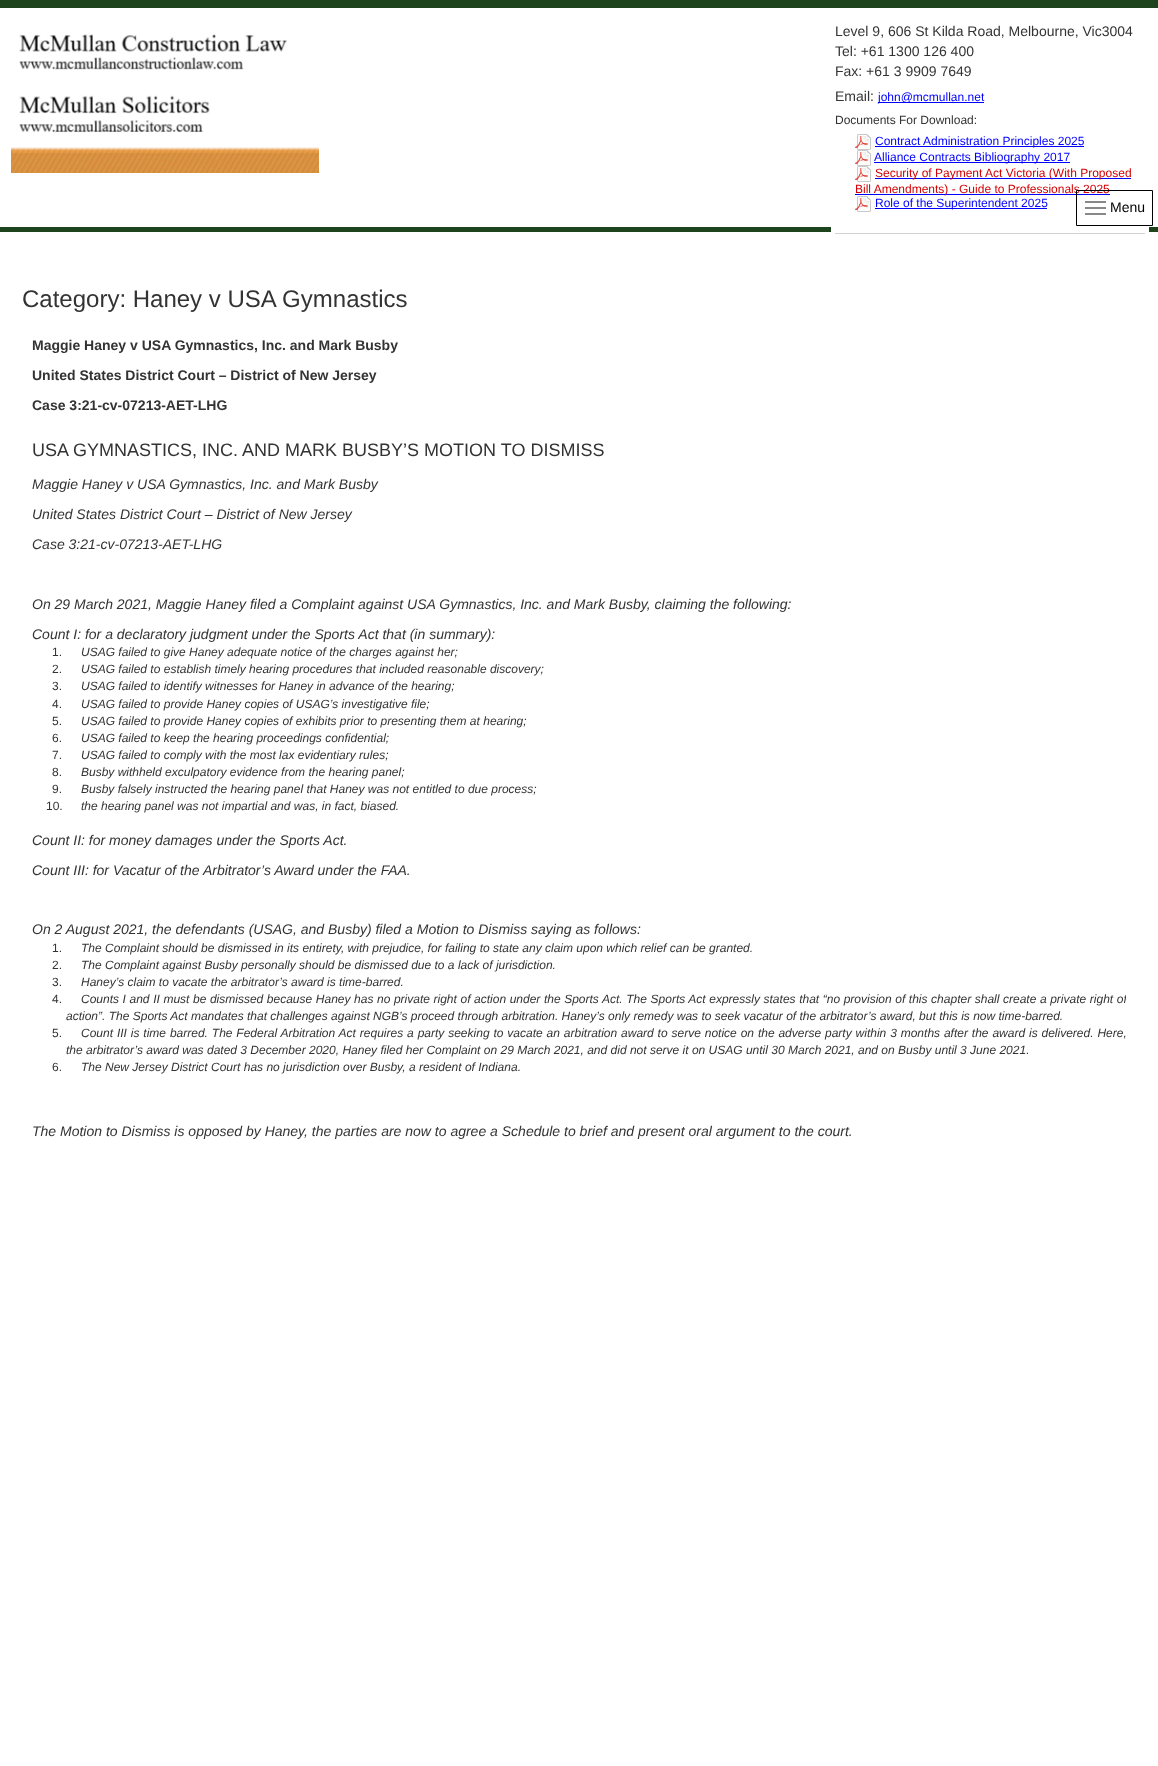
<svg xmlns="http://www.w3.org/2000/svg" width="1158" height="1766" viewBox="0 0 1158 1766">
  <defs>
    <clipPath id="clip1"><path d="M32 431h1094v711H32z"/></clipPath>
  </defs>
  <rect width="100%" height="100%" fill="#fff"/>
  <path d="M0 0h1158v8H0z" fill="#1e441e"/>
  <path d="M0 227h1158v5H0z" fill="#1e441e"/>
  <image x="11" y="34" width="308" height="139" href="img/1.png"/>
  <path d="M831 227h318v5H831z" fill="#fff"/>
  <path d="M835 233h310v1H835z" fill="#d3d3d3"/>
  <path d="M878 102h106v1H878z" fill="#00f"/>
  <image x="855" y="134" width="16" height="16" href="img/2.png"/>
  <path d="M875 146h209v1H875z" fill="#00f"/>
  <image x="855" y="150" width="16" height="16" href="img/2.png"/>
  <path d="M874 162h196v1H874z" fill="#00f"/>
  <image x="855" y="166" width="16" height="16" href="img/2.png"/>
  <path d="M875 178h256v1H875z" fill="#00f"/>
  <path d="M855 194h255v1H855z" fill="#00f"/>
  <image x="855" y="196" width="16" height="16" href="img/2.png"/>
  <path d="M875 208h172v1H875z" fill="#00f"/>
  <g font-family="Liberation Sans" font-size="14" fill="#333">
    <text x="835" y="36">Level 9, 606 St Kilda Road, Melbourne, Vic3004</text>
    <text x="835" y="56">Tel: +61 1300 126 400</text>
    <text x="835" y="76">Fax: +61 3 9909 7649</text>
    <text x="835" y="101">Email:</text>
  </g>
  <text x="878" y="101" font-family="Liberation Sans" font-size="12" fill="#00f">john@mcmullan.net</text>
  <text x="835" y="124" font-family="Liberation Sans" font-size="12" fill="#333">Documents For Download:</text>
  <g font-family="Liberation Sans" font-size="12" fill="#00f">
    <text x="875" y="145">Contract Administration Principles 2025</text>
    <text x="874" y="161">Alliance Contracts Bibliography 2017</text>
  </g>
  <g font-family="Liberation Sans" font-size="12" fill="#d20103">
    <text x="875" y="177">Security of Payment Act Victoria (With Proposed</text>
    <text x="855" y="193">Bill Amendments) - Guide to Professionals 2025</text>
  </g>
  <text x="875" y="207" font-family="Liberation Sans" font-size="12" fill="#00f">Role of the Superintendent 2025</text>
  <path d="M1076.5 190.5h76v35H1076.5z" fill="none" stroke="#000"/>
  <path d="M1085 201h21v2H1085z" fill="#888"/>
  <path d="M1085 207h21v2H1085z" fill="#888"/>
  <path d="M1085 213h21v2H1085z" fill="#888"/>
  <text x="1110" y="212" font-family="Liberation Sans" font-size="14" fill="#000">Menu</text>
  <text x="22" y="307" font-family="Liberation Sans" font-size="24" fill="#333">Category: Haney v USA Gymnastics</text>
  <g font-family="Liberation Sans" font-size="14" font-weight="bold" fill="#333">
    <text x="32" y="350">Maggie Haney v USA Gymnastics, Inc. and Mark Busby</text>
    <text x="32" y="380">United States District Court – District of New Jersey</text>
    <text x="32" y="410">Case 3:21-cv-07213-AET-LHG</text>
  </g>
  <text x="32" y="456" font-family="Liberation Sans" font-size="18" fill="#333">USA GYMNASTICS, INC. AND MARK BUSBY’S MOTION TO DISMISS</text>
  <g font-family="Liberation Sans" font-size="14" font-style="italic" fill="#333">
    <text x="32" y="489">Maggie Haney v USA Gymnastics, Inc. and Mark Busby</text>
    <text x="32" y="519">United States District Court – District of New Jersey</text>
    <text x="32" y="549">Case 3:21-cv-07213-AET-LHG</text>
    <text x="32" y="609">On 29 March 2021, Maggie Haney filed a Complaint against USA Gymnastics, Inc. and Mark Busby, claiming the following:</text>
    <text x="32" y="639">Count I: for a declaratory judgment under the Sports Act that (in summary):</text>
  </g>
  <text x="52" y="656" font-family="Liberation Sans" font-size="12" fill="#333">1.</text>
  <text x="81" y="656" font-family="Liberation Sans" font-size="12" font-style="italic" fill="#333">USAG failed to give Haney adequate notice of the charges against her;</text>
  <text x="52" y="673" font-family="Liberation Sans" font-size="12" fill="#333">2.</text>
  <text x="81" y="673" font-family="Liberation Sans" font-size="12" font-style="italic" fill="#333">USAG failed to establish timely hearing procedures that included reasonable discovery;</text>
  <text x="52" y="690" font-family="Liberation Sans" font-size="12" fill="#333">3.</text>
  <text x="81" y="690" font-family="Liberation Sans" font-size="12" font-style="italic" fill="#333">USAG failed to identify witnesses for Haney in advance of the hearing;</text>
  <text x="52" y="708" font-family="Liberation Sans" font-size="12" fill="#333">4.</text>
  <text x="81" y="708" font-family="Liberation Sans" font-size="12" font-style="italic" fill="#333">USAG failed to provide Haney copies of USAG’s investigative file;</text>
  <text x="52" y="725" font-family="Liberation Sans" font-size="12" fill="#333">5.</text>
  <text x="81" y="725" font-family="Liberation Sans" font-size="12" font-style="italic" fill="#333">USAG failed to provide Haney copies of exhibits prior to presenting them at hearing;</text>
  <text x="52" y="742" font-family="Liberation Sans" font-size="12" fill="#333">6.</text>
  <text x="81" y="742" font-family="Liberation Sans" font-size="12" font-style="italic" fill="#333">USAG failed to keep the hearing proceedings confidential;</text>
  <text x="52" y="759" font-family="Liberation Sans" font-size="12" fill="#333">7.</text>
  <text x="81" y="759" font-family="Liberation Sans" font-size="12" font-style="italic" fill="#333">USAG failed to comply with the most lax evidentiary rules;</text>
  <text x="52" y="776" font-family="Liberation Sans" font-size="12" fill="#333">8.</text>
  <text x="81" y="776" font-family="Liberation Sans" font-size="12" font-style="italic" fill="#333">Busby withheld exculpatory evidence from the hearing panel;</text>
  <text x="52" y="793" font-family="Liberation Sans" font-size="12" fill="#333">9.</text>
  <text x="81" y="793" font-family="Liberation Sans" font-size="12" font-style="italic" fill="#333">Busby falsely instructed the hearing panel that Haney was not entitled to due process;</text>
  <text x="46" y="810" font-family="Liberation Sans" font-size="12" fill="#333">10.</text>
  <text x="81" y="810" font-family="Liberation Sans" font-size="12" font-style="italic" fill="#333">the hearing panel was not impartial and was, in fact, biased.</text>
  <g font-family="Liberation Sans" font-size="14" font-style="italic" fill="#333">
    <text x="32" y="845">Count II: for money damages under the Sports Act.</text>
    <text x="32" y="875">Count III: for Vacatur of the Arbitrator’s Award under the FAA.</text>
    <text x="32" y="934">On 2 August 2021, the defendants (USAG, and Busby) filed a Motion to Dismiss saying as follows:</text>
  </g>
  <text x="52" y="952" font-family="Liberation Sans" font-size="12" fill="#333">1.</text>
  <text x="81" y="952" font-family="Liberation Sans" font-size="12" font-style="italic" fill="#333">The Complaint should be dismissed in its entirety, with prejudice, for failing to state any claim upon which relief can be granted.</text>
  <text x="52" y="969" font-family="Liberation Sans" font-size="12" fill="#333">2.</text>
  <text x="81" y="969" font-family="Liberation Sans" font-size="12" font-style="italic" fill="#333">The Complaint against Busby personally should be dismissed due to a lack of jurisdiction.</text>
  <text x="52" y="986" font-family="Liberation Sans" font-size="12" fill="#333">3.</text>
  <text x="81" y="986" font-family="Liberation Sans" font-size="12" font-style="italic" fill="#333">Haney’s claim to vacate the arbitrator’s award is time-barred.</text>
  <text x="52" y="1003" font-family="Liberation Sans" font-size="12" fill="#333">4.</text>
  <g clip-path="url(#clip1)">
    <text x="81" y="1003" word-spacing="0.25" font-family="Liberation Sans" font-size="12" font-style="italic" fill="#333">Counts I and II must be dismissed because Haney has no private right of action under the Sports Act. The Sports Act expressly states that “no provision of this chapter shall create a private right of</text>
  </g>
  <text x="66" y="1020" font-family="Liberation Sans" font-size="12" font-style="italic" fill="#333">action”. The Sports Act mandates that challenges against NGB’s proceed through arbitration. Haney’s only remedy was to seek vacatur of the arbitrator’s award, but this is now time-barred.</text>
  <text x="52" y="1037" font-family="Liberation Sans" font-size="12" fill="#333">5.</text>
  <g font-family="Liberation Sans" font-size="12" font-style="italic" fill="#333">
    <text x="81" y="1037" word-spacing="0.55">Count III is time barred. The Federal Arbitration Act requires a party seeking to vacate an arbitration award to serve notice on the adverse party within 3 months after the award is delivered. Here,</text>
    <text x="66" y="1054">the arbitrator’s award was dated 3 December 2020, Haney filed her Complaint on 29 March 2021, and did not serve it on USAG until 30 March 2021, and on Busby until 3 June 2021.</text>
  </g>
  <text x="52" y="1071" font-family="Liberation Sans" font-size="12" fill="#333">6.</text>
  <text x="81" y="1071" font-family="Liberation Sans" font-size="12" font-style="italic" fill="#333">The New Jersey District Court has no jurisdiction over Busby, a resident of Indiana.</text>
  <text x="32" y="1136" font-family="Liberation Sans" font-size="14" font-style="italic" fill="#333">The Motion to Dismiss is opposed by Haney, the parties are now to agree a Schedule to brief and present oral argument to the court.</text>
</svg>
